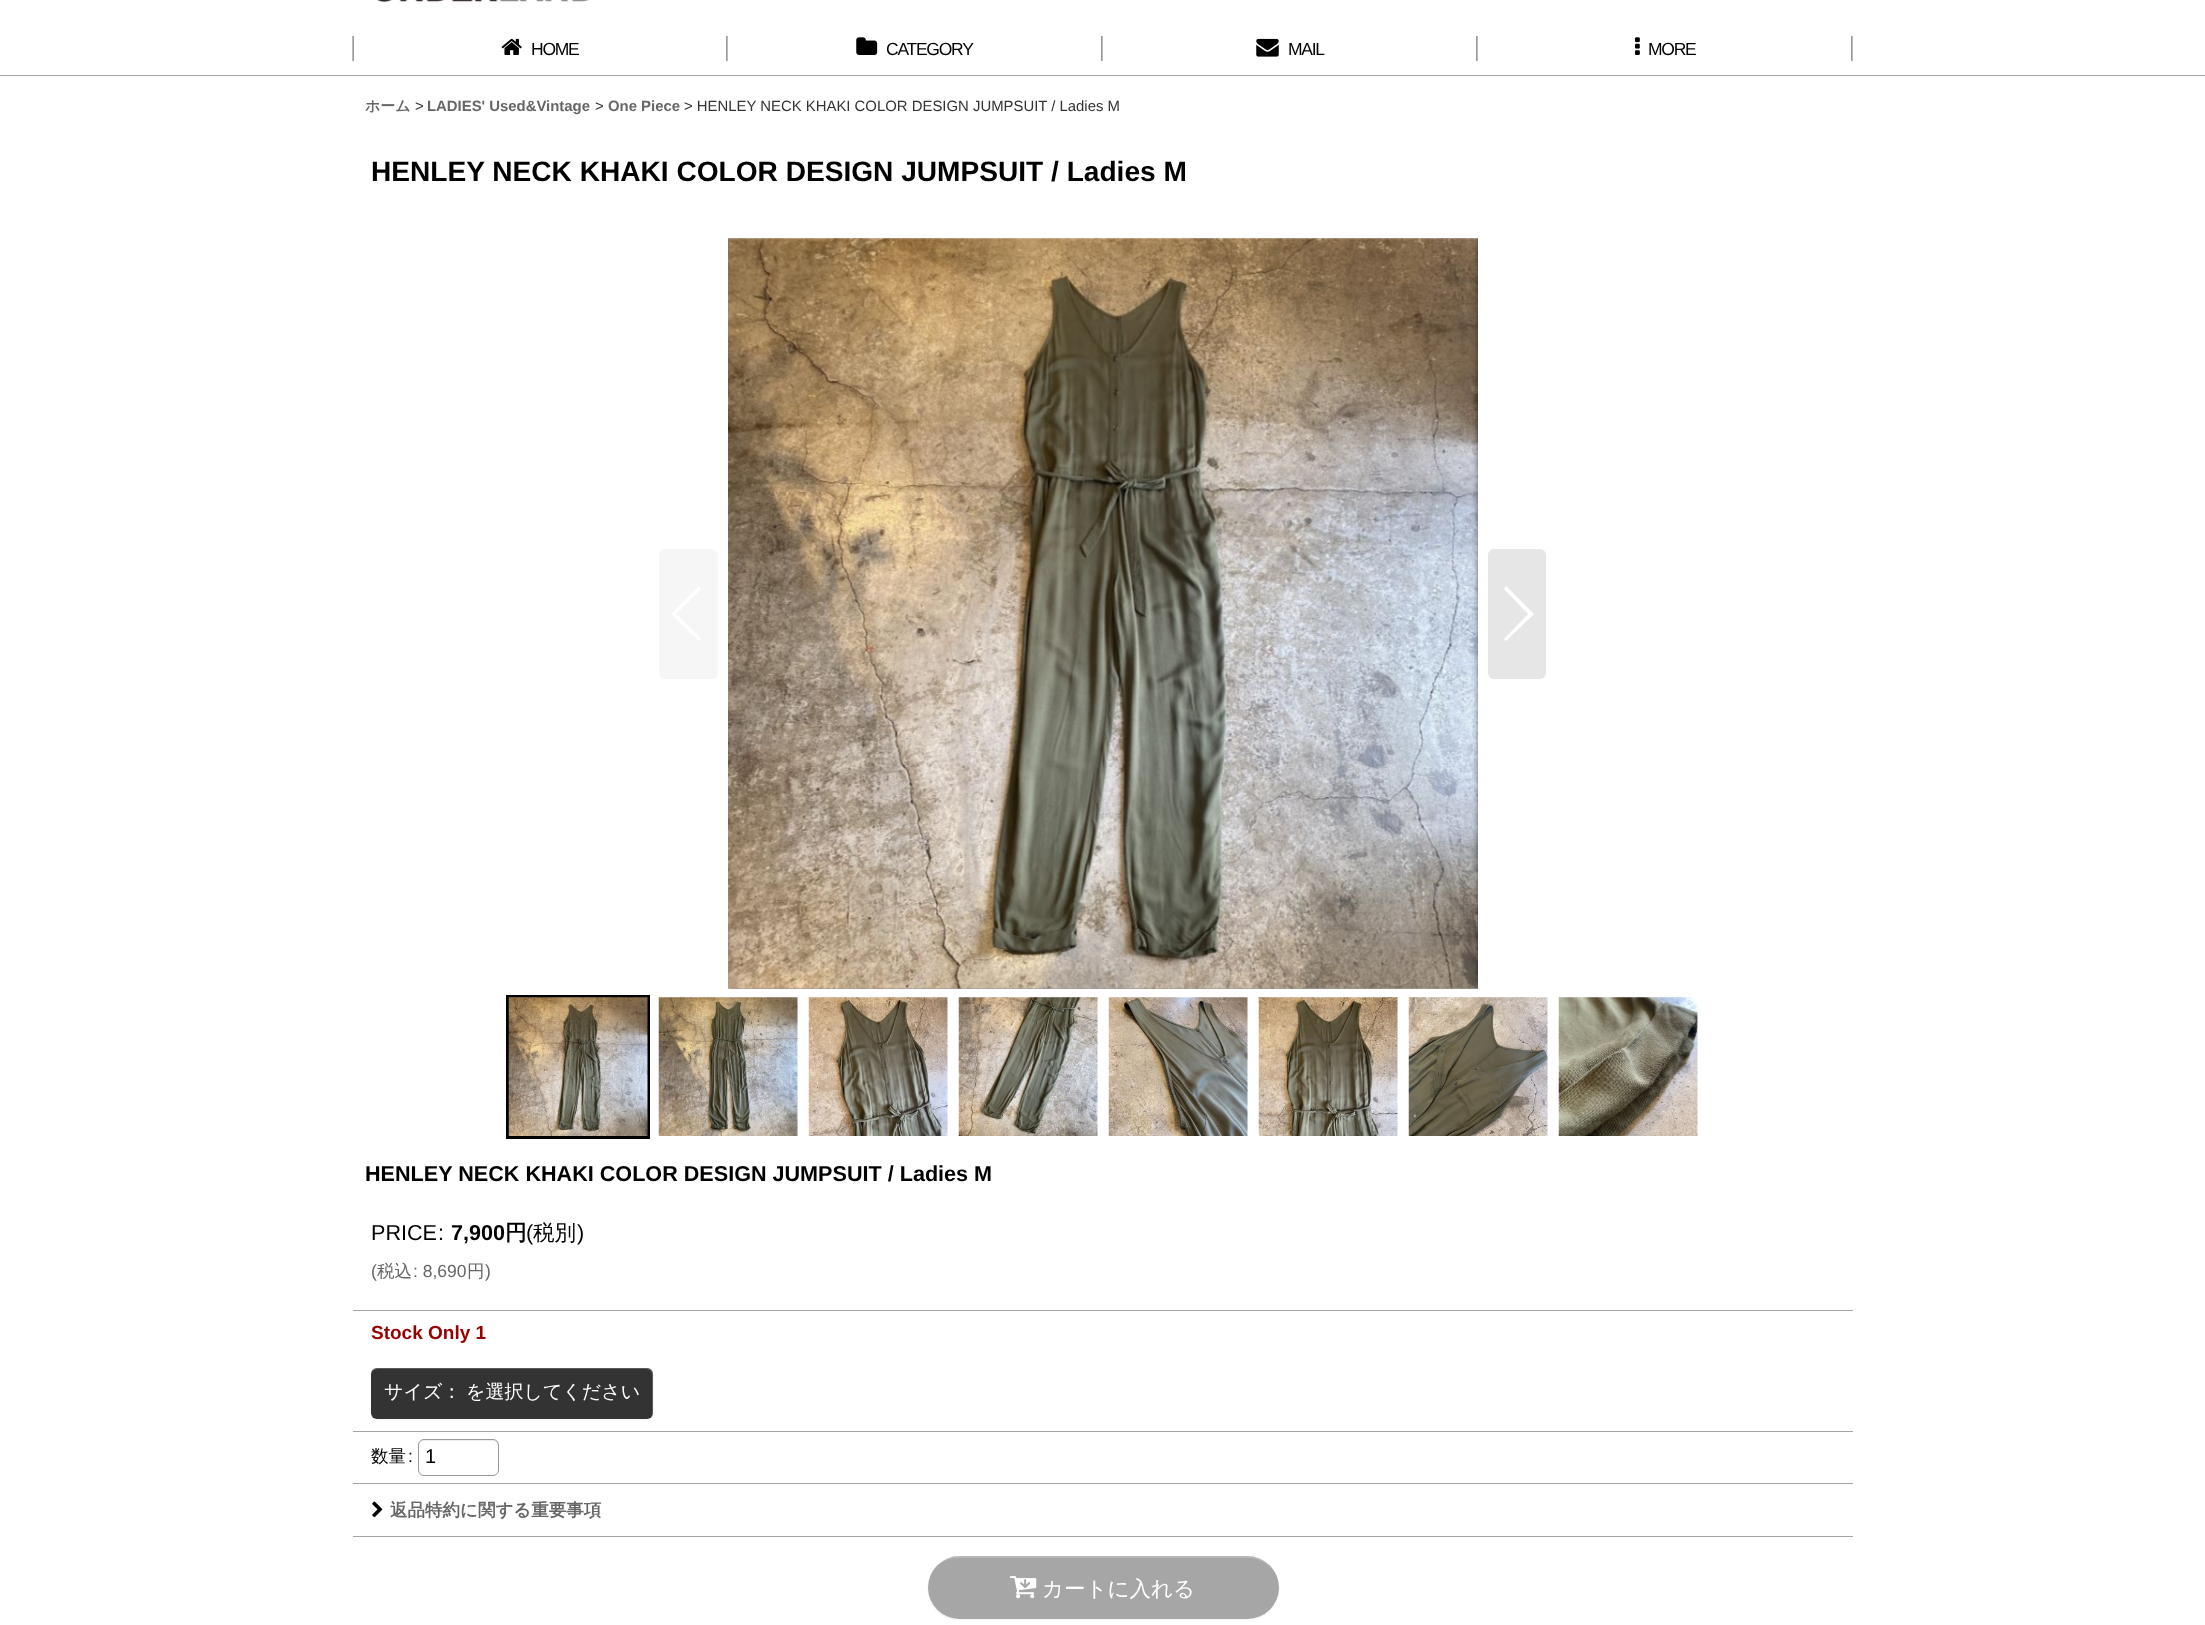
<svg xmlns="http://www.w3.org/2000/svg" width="2205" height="1625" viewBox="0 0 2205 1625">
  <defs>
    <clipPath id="clip1"><path d="M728 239h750v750H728z"/></clipPath>
  </defs>
  <rect width="100%" height="100%" fill="#fff"/>
  <image x="377" y="0" width="212" height="3" href="img/1.png"/>
  <path d="M0 75h2205v1H0z" fill="#a6a6a6"/>
  <image x="352" y="36" width="376" height="25" href="img/2.png"/>
  <image x="501" y="38" width="21" height="17" href="img/3.png"/>
  <image x="1101" y="36" width="2" height="25" href="img/4.png"/>
  <image x="856" y="37" width="22" height="18" href="img/5.png"/>
  <image x="1476" y="36" width="2" height="25" href="img/4.png"/>
  <image x="1256" y="38" width="23" height="19" href="img/6.png"/>
  <image x="1851" y="36" width="2" height="25" href="img/4.png"/>
  <image x="1635" y="37" width="5" height="18" href="img/7.png"/>
  <image x="658" y="997" width="140" height="139" href="img/10.png"/>
  <image x="808" y="997" width="140" height="139" href="img/11.png"/>
  <image x="958" y="997" width="140" height="139" href="img/12.png"/>
  <image x="1108" y="997" width="140" height="139" href="img/13.png"/>
  <image x="1258" y="997" width="140" height="139" href="img/14.png"/>
  <image x="1408" y="997" width="140" height="139" href="img/15.png"/>
  <g clip-path="url(#clip1)">
    <path d="M728 241h750v750H728z" fill="#00000080" filter="blur(3px)"/>
  </g>
  <image x="728" y="238" width="750" height="751" href="img/8.png"/>
  <image x="1558" y="997" width="140" height="139" href="img/16.png"/>
  <g clip-path="url(#clip1)">
    <path d="M1478 241h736v750H1478z" fill="#00000080" filter="blur(3px)"/>
  </g>
  <rect x="659" y="549" width="59" height="130" rx="6" fill="#f6f6f6"/>
  <path d="M671 614L699 586L701 589L676 614L701 639L699 641Z" fill="#fff"/>
  <rect x="1488" y="549" width="58" height="130" rx="6" fill="#e6e6e6"/>
  <path d="M1534 614L1506 641L1504 639L1528 614L1504 589L1506 586Z" fill="#fff"/>
  <path d="M507.5 996.5h141v141H507.5z" fill="none" stroke="#000" stroke-width="3"/>
  <image x="508" y="997" width="140" height="139" href="img/9.png"/>
  <path d="M353 1310h1500v1H353z" fill="#a6a6a6"/>
  <path d="M353 1431h1500v1H353z" fill="#a6a6a6"/>
  <rect x="371" y="1369" width="282" height="51" rx="6" fill="#0000000d" filter="blur(1px)"/>
  <rect x="371" y="1368" width="282" height="51" rx="6" fill="#333"/>
  <path d="M378 1369H646C650 1369 652 1372 652 1375V1414C652 1415 652 1416 651 1417C652 1416 653 1415 653 1413V1374C653 1371 650 1368 647 1368H377C374 1368 371 1371 371 1374V1375C371 1372 374 1369 378 1369Z" fill="#ffffff33"/>
  <path d="M353 1483h1500v1H353z" fill="#a6a6a6"/>
  <path d="M424 1441H492C495 1441 498 1443 498 1446C498 1437 487 1440 482 1440H436C430 1440 419 1437 419 1446C419 1443 421 1441 424 1441Z" fill="#ececec"/>
  <rect x="418.5" y="1439.5" width="80" height="36" rx="5.5" fill="none" stroke="#999"/>
  <path d="M353 1536h1500v1H353z" fill="#a6a6a6"/>
  <image x="372" y="1501" width="11" height="17" href="img/17.png"/>
  <rect x="928" y="1558" width="351" height="62" rx="31" fill="#0000000d" filter="blur(1px)"/>
  <rect x="928" y="1556" width="351" height="63" rx="31.5" fill="#a6a6a6"/>
  <path d="M959 1558H1248C1265 1558 1279 1571 1279 1588C1279 1570 1265 1556 1248 1556H960C942 1556 928 1570 928 1588C928 1571 941 1558 959 1558Z" fill="#ffffff33"/>
  <image x="1010" y="1576" width="27" height="23" href="img/18.png"/>
  <g font-family="Liberation Sans" font-size="17.5" letter-spacing="-1.25" fill="#000">
    <text x="531" y="55">HOME</text>
    <text x="886" y="55">CATEGORY</text>
    <text x="1288" y="55">MAIL</text>
    <text x="1648" y="55">MORE</text>
  </g>
  <text x="365" y="111" font-family="WenQuanYi Zen Hei" font-size="14.9" font-weight="bold" fill="#666">ホーム</text>
  <text x="415" y="111" font-family="Liberation Sans" font-size="14.9" fill="#333">&gt;</text>
  <text x="427" y="111" font-family="Liberation Sans" font-size="14.9" font-weight="bold" fill="#666">LADIES' Used&amp;Vintage</text>
  <text x="595" y="111" font-family="Liberation Sans" font-size="14.9" fill="#333">&gt;</text>
  <text x="608" y="111" font-family="Liberation Sans" font-size="14.9" font-weight="bold" fill="#666">One Piece</text>
  <text x="684" y="111" font-family="Liberation Sans" font-size="14.9" fill="#333">&gt; HENLEY NECK KHAKI COLOR DESIGN JUMPSUIT / Ladies M</text>
  <text x="371" y="181" font-family="Liberation Sans" font-size="28.1" font-weight="bold" fill="#000">HENLEY NECK KHAKI COLOR DESIGN JUMPSUIT / Ladies M</text>
  <text x="365" y="1181" font-family="Liberation Sans" font-size="21.6" font-weight="bold" fill="#000">HENLEY NECK KHAKI COLOR DESIGN JUMPSUIT / Ladies M</text>
  <g font-family="Liberation Sans" font-size="21.6" fill="#000">
    <text x="371" y="1240">PRICE</text>
    <text x="438" y="1240">:</text>
  </g>
  <text x="451" y="1240" font-family="Liberation Sans" font-size="21.6" font-weight="bold" fill="#000">7,900</text>
  <text x="505" y="1240" font-family="WenQuanYi Zen Hei" font-size="21.6" font-weight="bold" fill="#000">円</text>
  <text x="526" y="1240" font-family="Liberation Sans" font-size="21.6" fill="#000">(</text>
  <text x="533" y="1240" font-family="WenQuanYi Zen Hei" font-size="21.6" font-weight="500" fill="#000">税別</text>
  <text x="577" y="1240" font-family="Liberation Sans" font-size="21.6" fill="#000">)</text>
  <text x="371" y="1277" font-family="Liberation Sans" font-size="17.5" fill="#666">(</text>
  <text x="377" y="1277" font-family="WenQuanYi Zen Hei" font-size="17.5" font-weight="500" fill="#666">税込</text>
  <text x="413" y="1277" font-family="Liberation Sans" font-size="17.5" fill="#666">: 8,690</text>
  <text x="467" y="1277" font-family="WenQuanYi Zen Hei" font-size="17.5" font-weight="500" fill="#666">円</text>
  <text x="485" y="1277" font-family="Liberation Sans" font-size="17.5" fill="#666">)</text>
  <text x="371" y="1339" font-family="Liberation Sans" font-size="19" font-weight="bold" fill="#900">Stock Only 1</text>
  <g font-family="WenQuanYi Zen Hei" font-size="19" font-weight="500" fill="#fff">
    <text x="384" y="1398">サイズ：</text>
    <text x="466" y="1398">を選択してください</text>
  </g>
  <text x="371" y="1462" font-family="WenQuanYi Zen Hei" font-size="17.5" font-weight="500" fill="#000">数量</text>
  <text x="408" y="1462" font-family="Liberation Sans" font-size="17.5" fill="#000">:</text>
  <text x="425" y="1463" font-family="Liberation Sans" font-size="20" fill="#000">1</text>
  <text x="390" y="1516" font-family="WenQuanYi Zen Hei" font-size="17.5" font-weight="bold" fill="#666">返品特約に関する重要事項</text>
  <text x="1042" y="1596" font-family="WenQuanYi Zen Hei" font-size="21.5" font-weight="500" fill="#fff">カートに入れる</text>
</svg>
